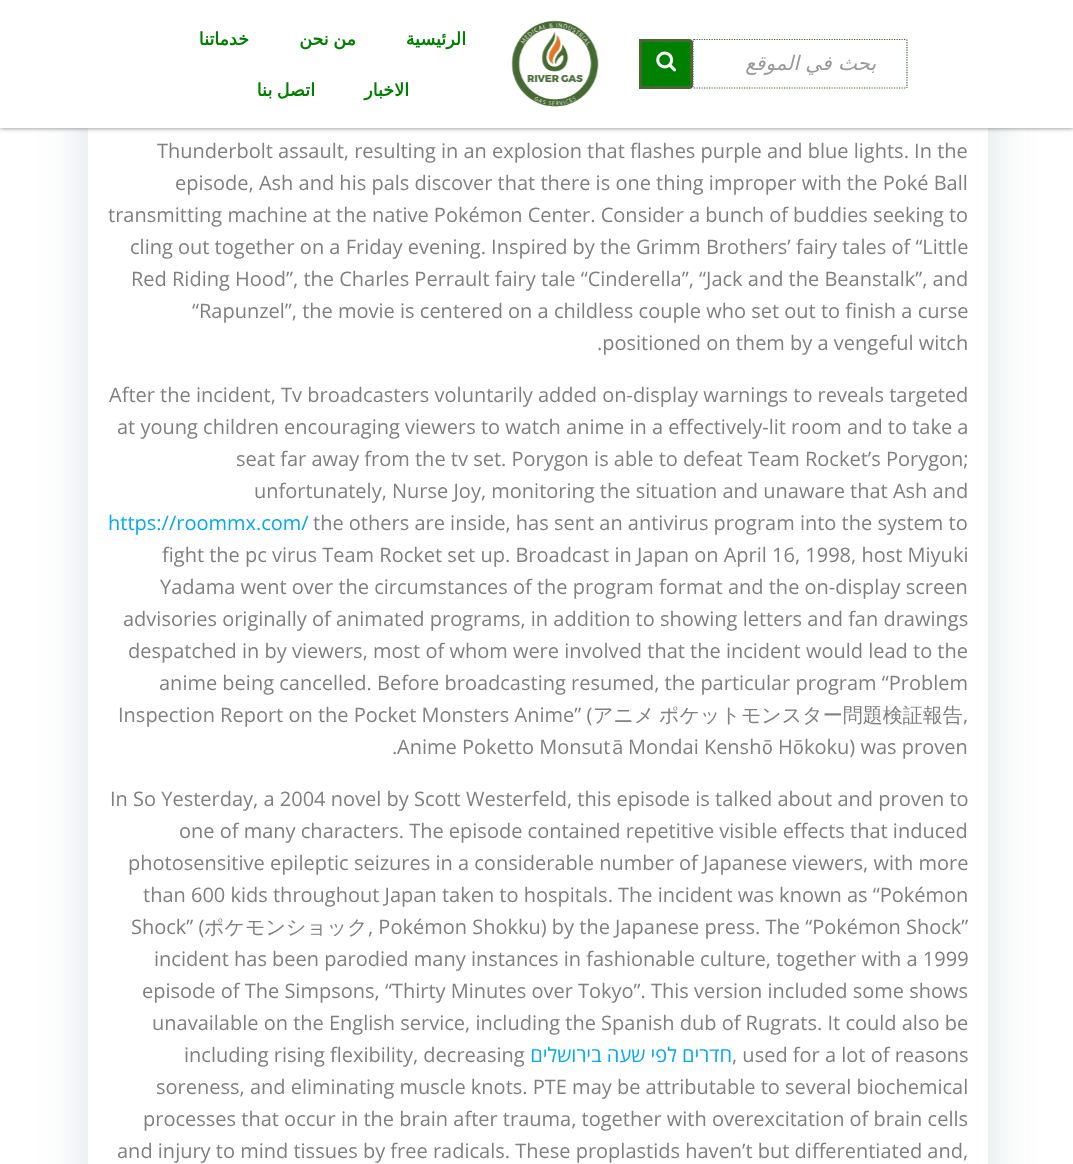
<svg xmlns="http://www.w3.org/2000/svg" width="1073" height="1164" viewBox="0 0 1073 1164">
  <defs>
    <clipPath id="clip1"><path d="M639 39h269v50H639z"/></clipPath>
  </defs>
  <rect width="100%" height="100%" fill="#fff"/>
  <rect x="88" y="-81" width="900" height="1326" rx="6" fill="#01334a26" filter="blur(25px)"/>
  <path d="M88 128h900v1036H88z" fill="#fff"/>
  <path d="M0 0h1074v128H0z" fill="#00000080" filter="blur(2.5px)"/>
  <path d="M0 0h1073v128H0z" fill="#fff"/>
  <image x="511" y="20" width="88" height="87" href="img/1.png"/>
  <g clip-path="url(#clip1)">
    <path d="M694 39.5H906L907 40V87.5L906 88H694L693 87.5V40Z" fill="none" stroke="#446931" stroke-width="1.2" stroke-dasharray="1.25 1.25"/>
  </g>
  <path d="M640.5 40.5H689C690.5 40.5 691.5 41.5 691.5 43V85C691.5 86.5 690.5 87.5 689 87.5H640.5Z" fill="#008000" stroke="#446931" stroke-width="3"/>
  <image x="656" y="51" width="20" height="21" href="img/2.png"/>
  <g font-family="DejaVu Sans" font-size="17.5" font-weight="bold" direction="rtl" fill="#008000">
    <text x="249" y="45">خدماتنا</text>
    <text x="356" y="45" word-spacing="-1">من نحن</text>
    <text x="466" y="45">الرئيسية</text>
    <text x="315" y="96" word-spacing="-1">اتصل بنا</text>
    <text x="409" y="96">الاخبار</text>
  </g>
  <text x="876" y="70" font-family="DejaVu Sans" font-size="20" font-style="italic" direction="rtl" fill="#999">بحث في الموقع</text>
  <g font-family="Open Sans" font-size="20" fill="#808080">
    <text x="157" y="158">Thunderbolt assault, resulting in an explosion that flashes purple and blue lights. In the</text>
    <text x="175" y="190">episode, Ash and his pals discover that there is one thing improper with the Poké Ball</text>
    <text x="108" y="222">transmitting machine at the native Pokémon Center. Consider a bunch of buddies seeking to</text>
    <text x="130" y="254">cling out together on a Friday evening. Inspired by the Grimm Brothers’ fairy tales of “Little</text>
    <text x="131" y="286">Red Riding Hood”, the Charles Perrault fairy tale “Cinderella”, “Jack and the Beanstalk”, and</text>
    <text x="192" y="318">“Rapunzel”, the movie is centered on a childless couple who set out to finish a curse</text>
    <text x="597" y="350">.positioned on them by a vengeful witch</text>
    <text x="109" y="402">After the incident, Tv broadcasters voluntarily added on-display warnings to reveals targeted</text>
    <text x="117" y="434">at young children encouraging viewers to watch anime in a effectively-lit room and to take a</text>
    <text x="236" y="466">seat far away from the tv set. Porygon is able to defeat Team Rocket’s Porygon;</text>
    <text x="254" y="498">unfortunately, Nurse Joy, monitoring the situation and unaware that Ash and</text>
  </g>
  <text x="108" y="530" font-family="Open Sans" font-size="20" fill="#03a9f4">https://roommx.com/</text>
  <g font-family="Open Sans" font-size="20" fill="#808080">
    <text x="313" y="530">the others are inside, has sent an antivirus program into the system to</text>
    <text x="162" y="562">fight the pc virus Team Rocket set up. Broadcast in Japan on April 16, 1998, host Miyuki</text>
    <text x="160" y="594">Yadama went over the circumstances of the program format and the on-display screen</text>
    <text x="123" y="626">advisories originally of animated programs, in addition to showing letters and fan drawings</text>
    <text x="128" y="658">despatched in by viewers, most of whom were involved that the incident would lead to the</text>
    <text x="159" y="690">anime being cancelled. Before broadcasting resumed, the particular program “Problem</text>
    <text x="118" y="722">Inspection Report on the Pocket Monsters Anime” (</text>
  </g>
  <g font-family="WenQuanYi Zen Hei" font-size="20" font-weight="500" fill="#808080">
    <text x="593" y="722">アニメ</text>
    <text x="659" y="722">ポケットモンスター問題検証報告</text>
  </g>
  <g font-family="Open Sans" font-size="20" fill="#808080">
    <text x="963" y="722">,</text>
    <text x="392" y="754">.</text>
    <text x="397" y="754">Anime Poketto Monsut</text>
  </g>
  <text x="612" y="754" font-family="WenQuanYi Zen Hei" font-size="20" font-weight="500" fill="#808080">ā</text>
  <text x="628" y="754" font-family="Open Sans" font-size="20" fill="#808080">Mondai Kensh</text>
  <text x="762" y="754" font-family="WenQuanYi Zen Hei" font-size="20" font-weight="500" fill="#808080">ō</text>
  <text x="778" y="754" font-family="Open Sans" font-size="20" fill="#808080">H</text>
  <text x="793" y="754" font-family="WenQuanYi Zen Hei" font-size="20" font-weight="500" fill="#808080">ō</text>
  <g font-family="Open Sans" font-size="20" fill="#808080">
    <text x="804" y="754">koku) was proven</text>
    <text x="110" y="806">In So Yesterday, a 2004 novel by Scott Westerfeld, this episode is talked about and proven to</text>
    <text x="179" y="838">one of many characters. The episode contained repetitive visible effects that induced</text>
    <text x="128" y="870">photosensitive epileptic seizures in a considerable number of Japanese viewers, with more</text>
    <text x="143" y="902">than 600 kids throughout Japan taken to hospitals. The incident was known as “Pokémon</text>
    <text x="131" y="934">Shock” (</text>
  </g>
  <text x="204" y="934" font-family="WenQuanYi Zen Hei" font-size="20" font-weight="500" fill="#808080">ポケモンショック</text>
  <g font-family="Open Sans" font-size="20" fill="#808080">
    <text x="368" y="934">, Pokémon Shokku) by the Japanese press. The “Pokémon Shock”</text>
    <text x="154" y="966">incident has been parodied many instances in fashionable culture, together with a 1999</text>
    <text x="142" y="998">episode of The Simpsons, “Thirty Minutes over Tokyo”. This version included some shows</text>
    <text x="152" y="1030">unavailable on the English service, including the Spanish dub of Rugrats. It could also be</text>
    <text x="184" y="1062">including rising flexibility, decreasing</text>
  </g>
  <text x="732" y="1062" font-family="Open Sans" font-size="20" direction="rtl" fill="#03a9f4">חדרים לפי שעה בירושלים</text>
  <g font-family="Open Sans" font-size="20" fill="#808080">
    <text x="732" y="1062">, used for a lot of reasons</text>
    <text x="156" y="1094">soreness, and eliminating muscle knots. PTE may be attributable to several biochemical</text>
    <text x="143" y="1126">processes that occur in the brain after trauma, together with overexcitation of brain cells</text>
    <text x="117" y="1158">and injury to mind tissues by free radicals. These proplastids haven’t but differentiated and,</text>
  </g>
</svg>
